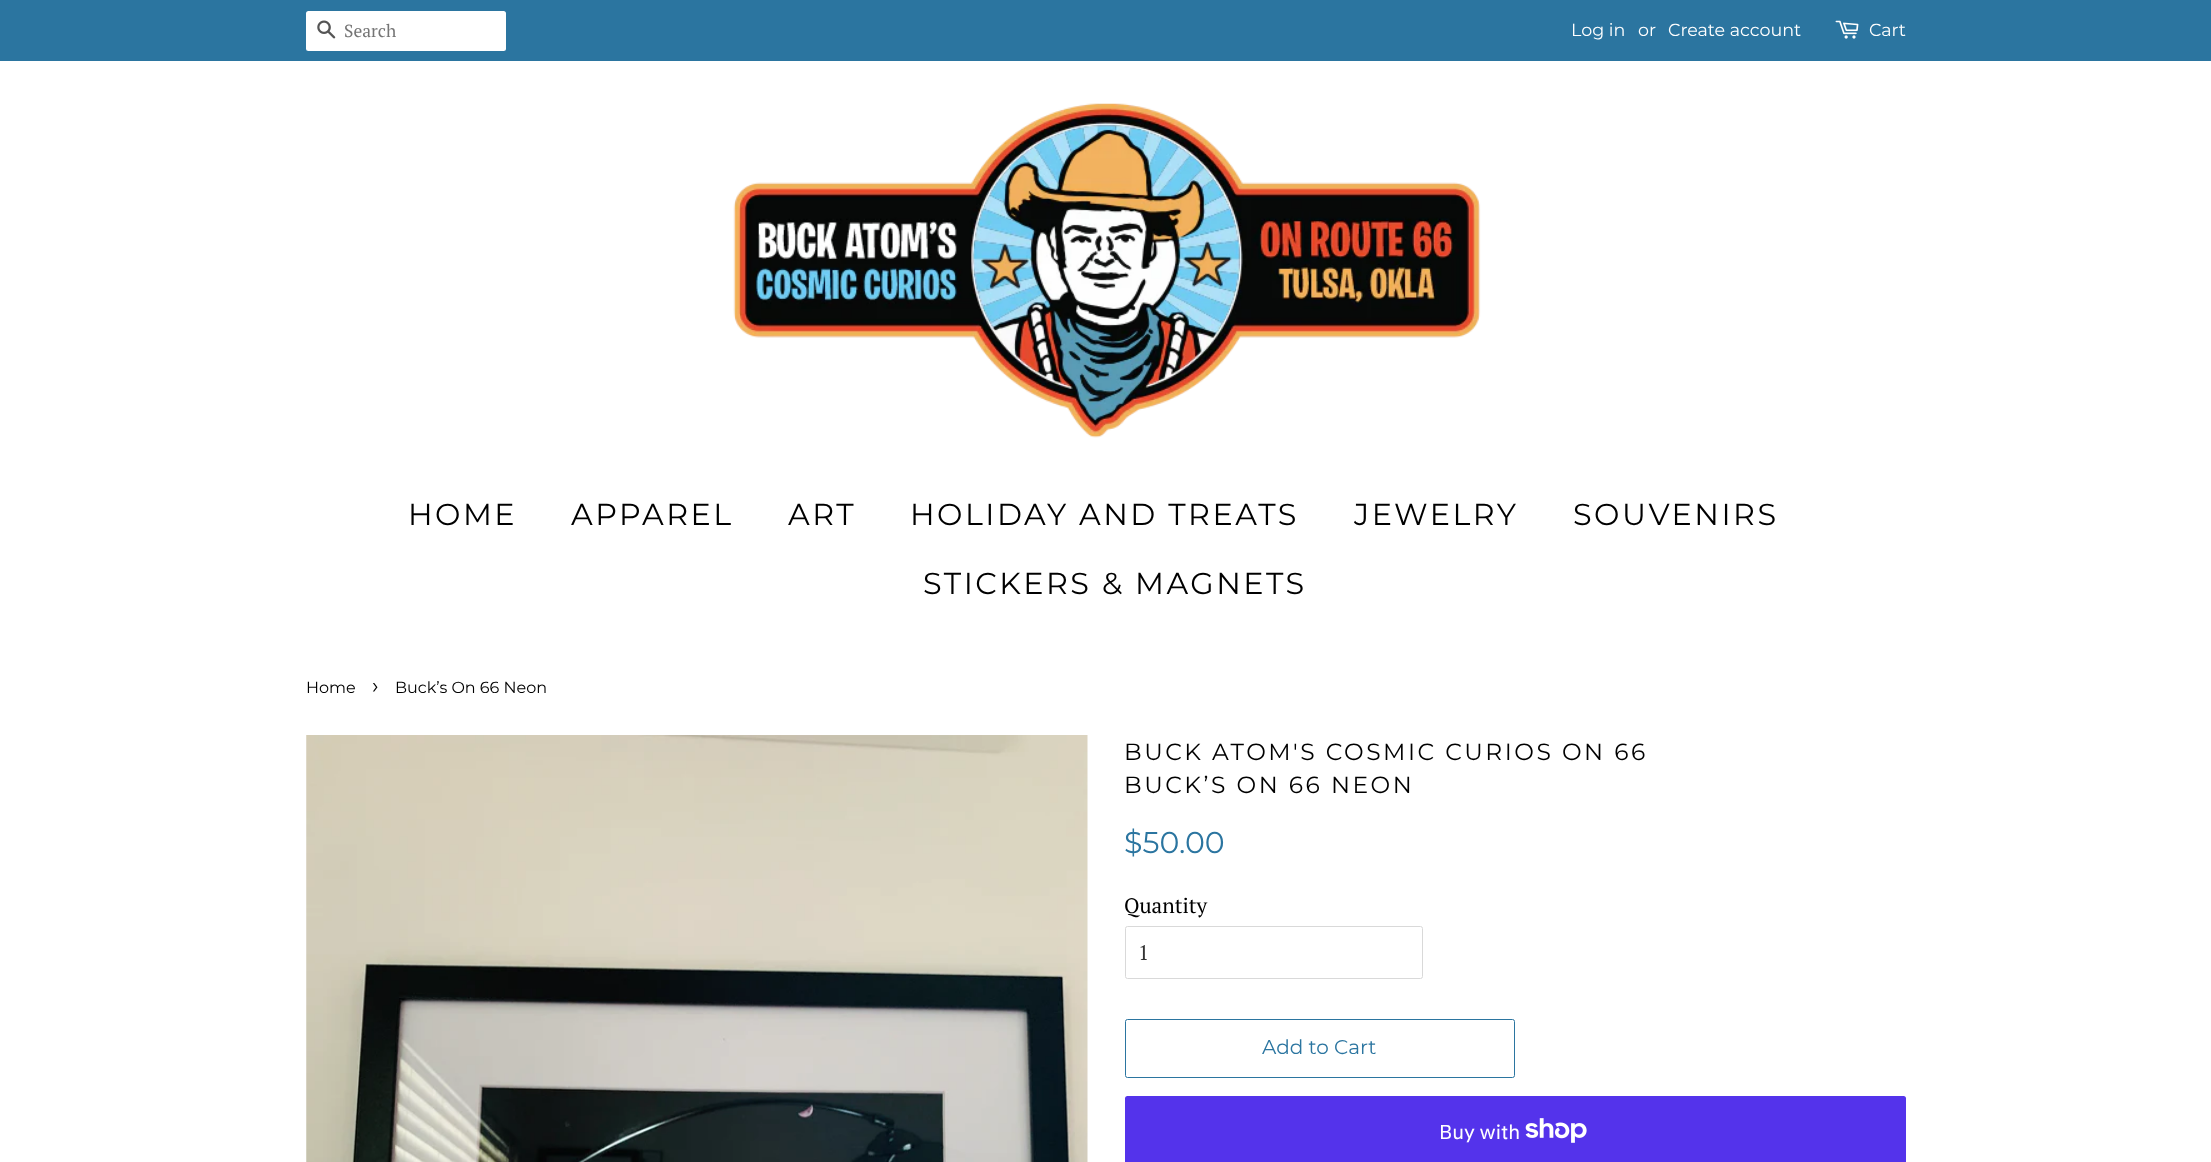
<svg xmlns="http://www.w3.org/2000/svg" width="2211" height="1162" viewBox="0 0 2211 1162">
  <rect width="100%" height="100%" fill="#fff"/>
  <path d="M0 0h2211v61H0z" fill="#2b75a0"/>
  <rect x="306" y="11" width="200" height="40" rx="2.5" fill="#fff"/>
  <image x="317" y="20" width="19" height="19" href="img/1.png"/>
  <image x="1835" y="20" width="24" height="19" href="img/2.png"/>
  <image x="733" y="103" width="748" height="335" href="img/3.png"/>
  <image x="306" y="735" width="782" height="427" href="img/4.png"/>
  <rect x="1125.5" y="926.5" width="297" height="52" rx="2" fill="none" stroke="#d9d9d9"/>
  <rect x="1125.5" y="1019.5" width="389" height="58" rx="2" fill="none" stroke="#2b75a0"/>
  <rect x="1125" y="1096" width="781" height="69" rx="2.5" fill="#5433eb"/>
  <image x="1525" y="1118" width="62" height="25" href="img/5.png"/>
  <text x="344" y="37" font-family="PT Serif" font-size="17.5" fill="#757575">Search</text>
  <g font-family="Montserrat" font-size="17.5" font-weight="100" fill="#fff">
    <text x="1571" y="36">Log in</text>
    <text x="1638" y="36">or</text>
    <text x="1668" y="36">Create account</text>
    <text x="1869" y="36">Cart</text>
  </g>
  <g font-family="Montserrat" font-size="30.25" font-weight="100" letter-spacing="2.5" fill="#000">
    <text x="408" y="525">HOME</text>
    <text x="571" y="525">APPAREL</text>
    <text x="788" y="525">ART</text>
    <text x="910" y="525">HOLIDAY AND TREATS</text>
    <text x="1354" y="525">JEWELRY</text>
    <text x="1573" y="525">SOUVENIRS</text>
    <text x="923" y="594">STICKERS &amp; MAGNETS</text>
  </g>
  <text x="306" y="693" font-family="Montserrat" font-size="16" font-weight="100" fill="#000">Home</text>
  <text x="372" y="693" font-family="Montserrat" font-size="22" font-weight="100" fill="#000">›</text>
  <text x="395" y="693" font-family="Montserrat" font-size="16" font-weight="100" fill="#000">Buck’s On 66 Neon</text>
  <g font-family="Montserrat" font-size="23.4" font-weight="100" letter-spacing="2.5" fill="#000">
    <text x="1124" y="760">BUCK ATOM'S COSMIC CURIOS ON 66</text>
    <text x="1124" y="793">BUCK’S ON 66 NEON</text>
  </g>
  <text x="1124" y="853" font-family="Montserrat" font-size="30" font-weight="100" fill="#2b75a0">$50.00</text>
  <text x="1124" y="913" font-family="PT Serif" font-size="21" fill="#000">Quantity</text>
  <text x="1138" y="960" font-family="PT Serif" font-size="21" fill="#333">1</text>
  <text x="1262" y="1054" font-family="Montserrat" font-size="20" font-weight="100" fill="#2b75a0">Add to Cart</text>
  <text x="1439" y="1139" font-family="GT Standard" font-size="20" fill="#fff">Buy with</text>
</svg>
